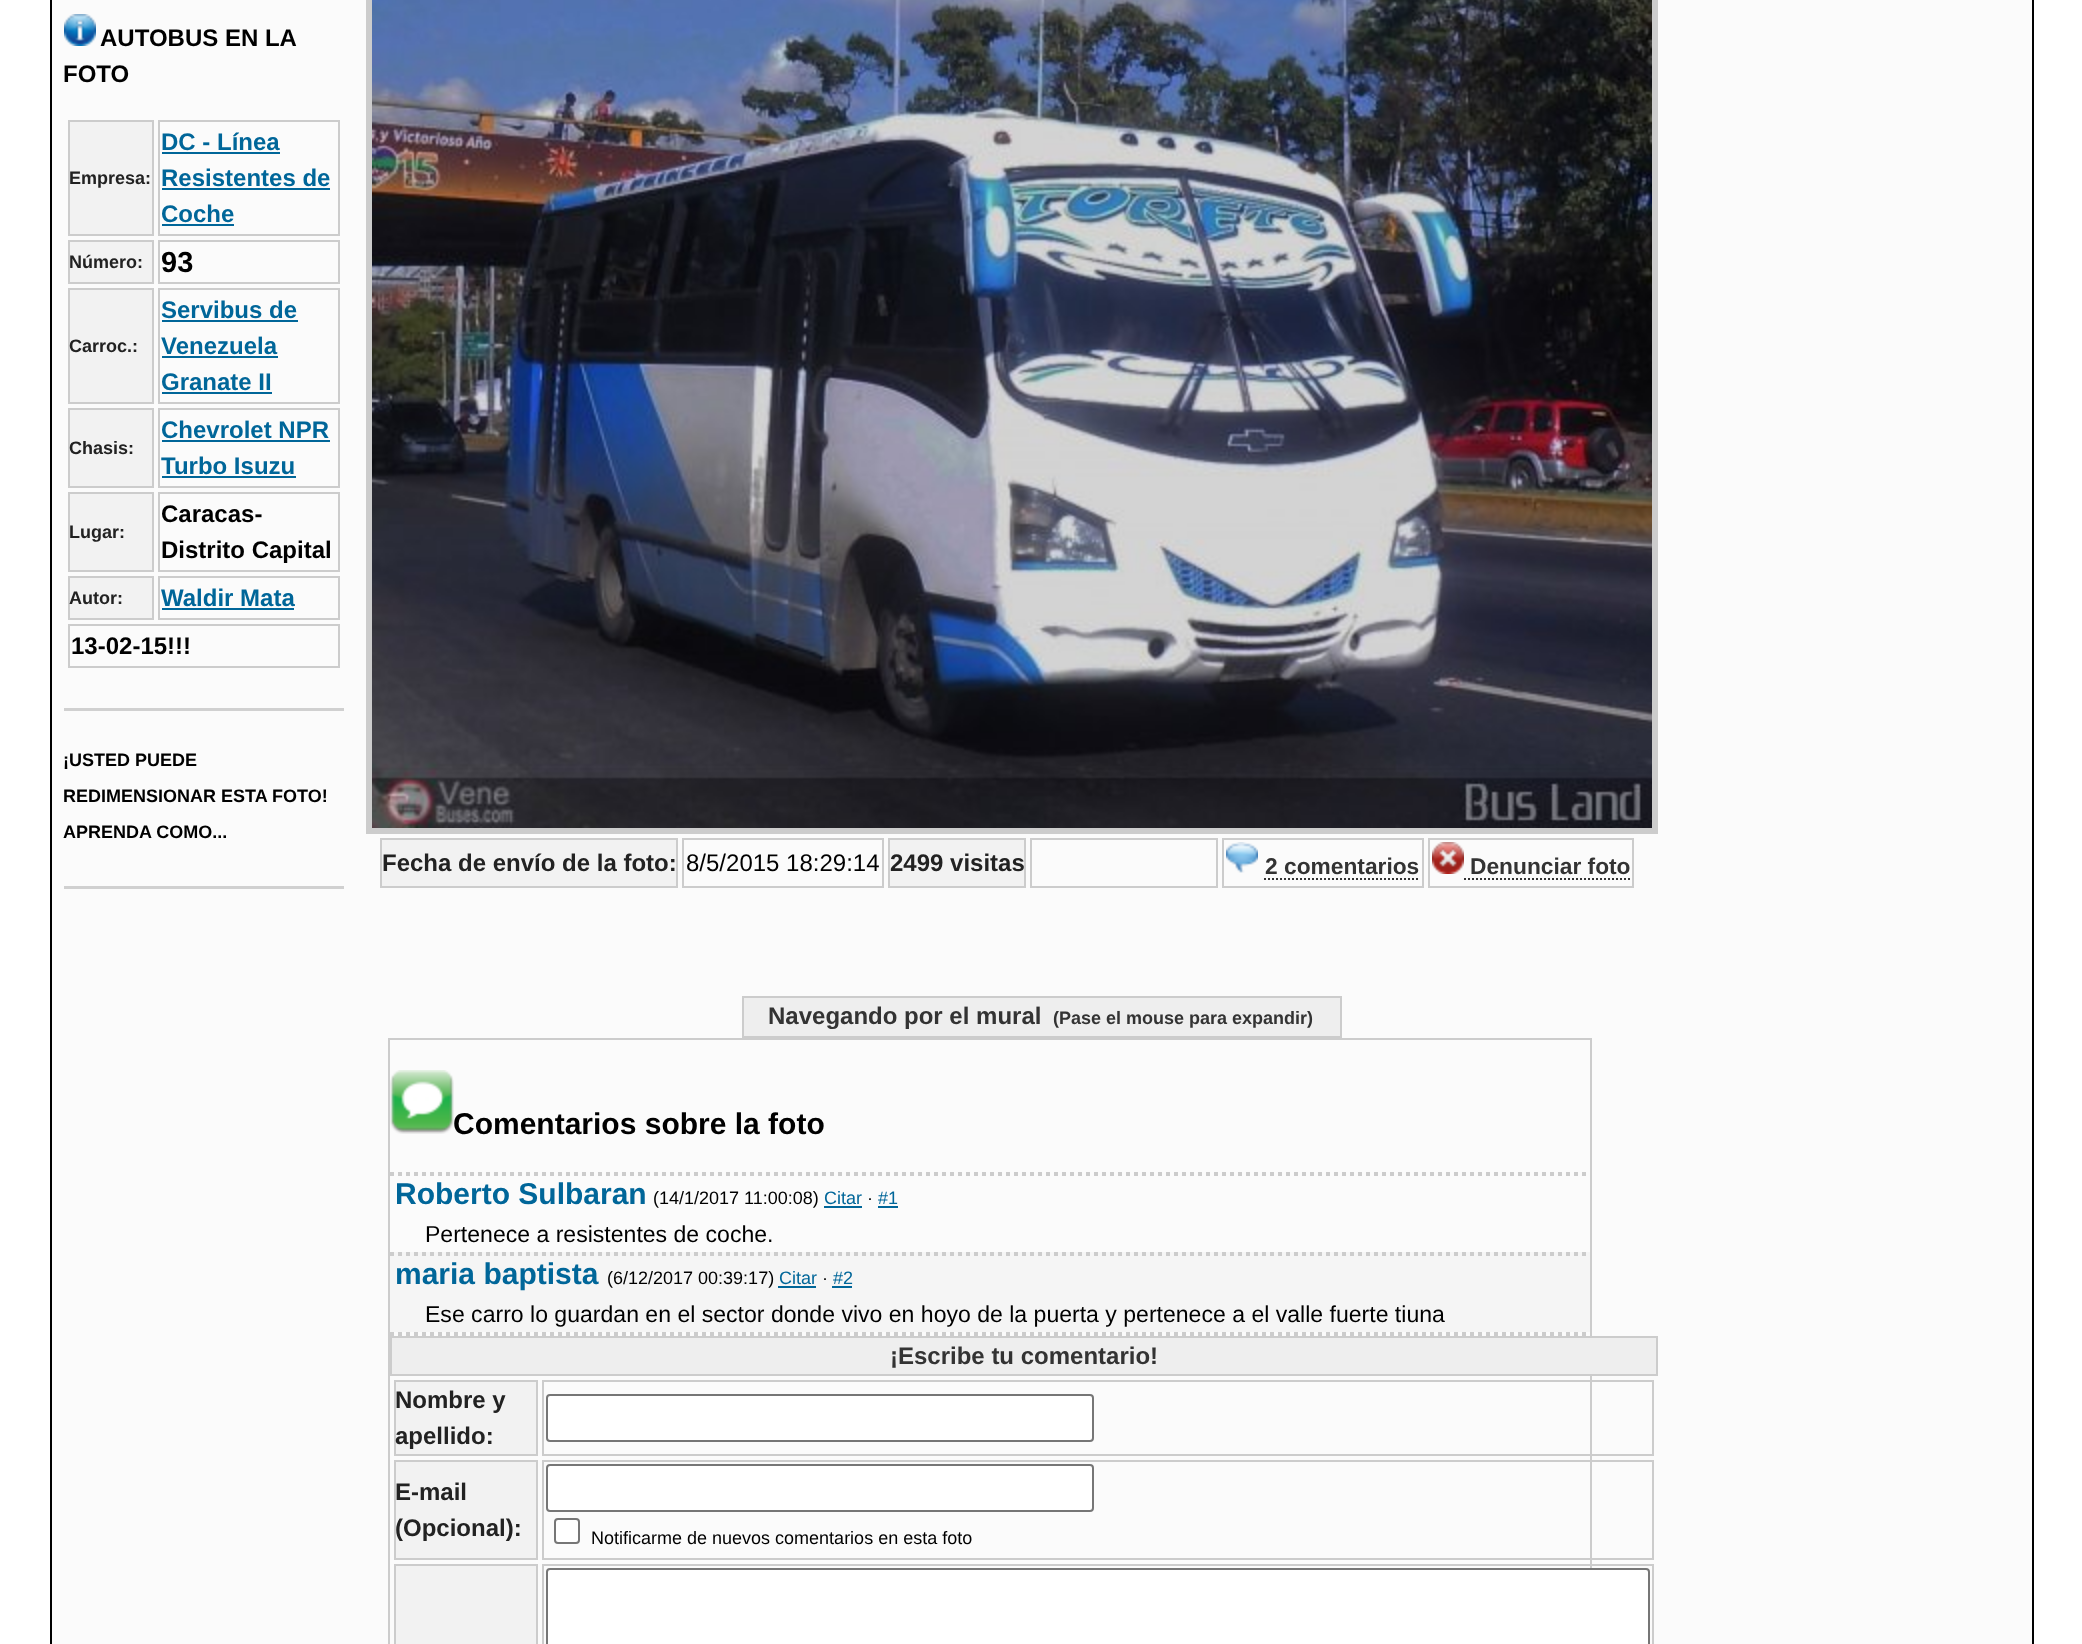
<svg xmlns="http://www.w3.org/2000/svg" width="2082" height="1644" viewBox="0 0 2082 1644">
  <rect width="100%" height="100%" fill="#fff"/>
  <path d="M51 -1h1982v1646H51z" fill="#fbfbfb" stroke="#000" stroke-width="2"/>
  <path d="M64 708h280v3H64z" fill="#d0d0d0"/>
  <image x="64" y="14" width="32" height="32" href="img/1.png"/>
  <path d="M69 121h84v114H69z" fill="#f2f2f2" stroke="#ccc" stroke-width="2"/>
  <path d="M159 121h180v114H159z" fill="none" stroke="#ccc" stroke-width="2"/>
  <path d="M162 152h118v2H162z" fill="#069"/>
  <path d="M162 188h168v2H162z" fill="#069"/>
  <path d="M162 224h72v2H162z" fill="#069"/>
  <path d="M69 241h84v42H69z" fill="#f2f2f2" stroke="#ccc" stroke-width="2"/>
  <path d="M159 241h180v42H159z" fill="none" stroke="#ccc" stroke-width="2"/>
  <path d="M69 289h84v114H69z" fill="#f2f2f2" stroke="#ccc" stroke-width="2"/>
  <path d="M159 289h180v114H159z" fill="none" stroke="#ccc" stroke-width="2"/>
  <path d="M162 320h136v2H162z" fill="#069"/>
  <path d="M162 356h116v2H162z" fill="#069"/>
  <path d="M162 392h110v2H162z" fill="#069"/>
  <path d="M69 409h84v78H69z" fill="#f2f2f2" stroke="#ccc" stroke-width="2"/>
  <path d="M159 409h180v78H159z" fill="none" stroke="#ccc" stroke-width="2"/>
  <path d="M162 440h168v2H162z" fill="#069"/>
  <path d="M162 476h134v2H162z" fill="#069"/>
  <path d="M69 493h84v78H69z" fill="#f2f2f2" stroke="#ccc" stroke-width="2"/>
  <path d="M159 493h180v78H159z" fill="none" stroke="#ccc" stroke-width="2"/>
  <path d="M69 577h84v42H69z" fill="#f2f2f2" stroke="#ccc" stroke-width="2"/>
  <path d="M159 577h180v42H159z" fill="none" stroke="#ccc" stroke-width="2"/>
  <path d="M162 608h132v2H162z" fill="#069"/>
  <path d="M69 625h270v42H69z" fill="none" stroke="#ccc" stroke-width="2"/>
  <path d="M64 886h280v3H64z" fill="#d0d0d0"/>
  <path d="M369 -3h1286v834H369z" fill="none" stroke="#ccc" stroke-width="6"/>
  <image x="372" y="0" width="1280" height="828" href="img/2.png"/>
  <path d="M381 839h296v48H381z" fill="#f2f2f2" stroke="#ccc" stroke-width="2"/>
  <path d="M683 839h200v48H683z" fill="none" stroke="#ccc" stroke-width="2"/>
  <path d="M889 839h136v48H889z" fill="#f2f2f2" stroke="#ccc" stroke-width="2"/>
  <path d="M1031 839h186v48H1031z" fill="none" stroke="#ccc" stroke-width="2"/>
  <path d="M1223 839h200v48H1223z" fill="none" stroke="#ccc" stroke-width="2"/>
  <image x="1226" y="842" width="32" height="31" href="img/3.png"/>
  <path d="M1264 879H1420" fill="none" stroke="#333" stroke-width="2" stroke-dasharray="2 2"/>
  <path d="M1429 839h204v48H1429z" fill="none" stroke="#ccc" stroke-width="2"/>
  <image x="1432" y="842" width="32" height="32" href="img/4.png"/>
  <path d="M1464 879H1630" fill="none" stroke="#333" stroke-width="2" stroke-dasharray="2 2"/>
  <path d="M743 997h598v40H743z" fill="#eee" stroke="#ccc" stroke-width="2"/>
  <path d="M389 1039h1202v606H389z" fill="none" stroke="#ccc" stroke-width="2"/>
  <image x="390" y="1070" width="64" height="64" href="img/5.png"/>
  <path d="M390 1334H1590" fill="none" stroke="#ccc" stroke-width="4" stroke-dasharray="4 4"/>
  <path d="M390 1174H1590" fill="none" stroke="#ccc" stroke-width="4" stroke-dasharray="4 4"/>
  <path d="M824 1206h38v2H824z" fill="#069"/>
  <path d="M878 1206h20v2H878z" fill="#069"/>
  <path d="M390 1252h1200v80H390z" fill="#f5f5f5"/>
  <path d="M390 1254H1590" fill="none" stroke="#ccc" stroke-width="4" stroke-dasharray="4 4"/>
  <path d="M778 1286h38v2H778z" fill="#069"/>
  <path d="M832 1286h20v2H832z" fill="#069"/>
  <path d="M391 1337h1266v38H391z" fill="#eee" stroke="#ccc" stroke-width="2"/>
  <path d="M395 1381h142v74H395z" fill="#f2f2f2" stroke="#ccc" stroke-width="2"/>
  <path d="M543 1381h1110v74H543z" fill="none" stroke="#ccc" stroke-width="2"/>
  <rect x="547" y="1395" width="546" height="46" rx="3" fill="#fff" stroke="#767676" stroke-width="2"/>
  <path d="M395 1461h142v98H395z" fill="#f2f2f2" stroke="#ccc" stroke-width="2"/>
  <path d="M543 1461h1110v98H543z" fill="none" stroke="#ccc" stroke-width="2"/>
  <rect x="547" y="1465" width="546" height="46" rx="3" fill="#fff" stroke="#767676" stroke-width="2"/>
  <rect x="555" y="1519" width="24" height="24" rx="3" fill="#fff" stroke="#767676" stroke-width="2"/>
  <path d="M395 1565h142v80H395z" fill="#f2f2f2" stroke="#ccc" stroke-width="2"/>
  <path d="M543 1565h1110v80H543z" fill="none" stroke="#ccc" stroke-width="2"/>
  <rect x="547" y="1569" width="1102" height="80" rx="3" fill="#fff" stroke="#767676" stroke-width="2"/>
  <g font-family="Liberation Sans" font-size="24" font-weight="bold" fill="#000">
    <text x="100" y="46">AUTOBUS EN LA</text>
    <text x="63" y="82">FOTO</text>
  </g>
  <text x="69" y="184" font-family="Liberation Sans" font-size="18" font-weight="bold" fill="#222">Empresa:</text>
  <g font-family="Liberation Sans" font-size="24" font-weight="bold" fill="#069">
    <text x="161" y="150">DC - Línea</text>
    <text x="161" y="186">Resistentes de</text>
    <text x="161" y="222">Coche</text>
  </g>
  <text x="69" y="268" font-family="Liberation Sans" font-size="18" font-weight="bold" fill="#222">Número:</text>
  <text x="161" y="272" font-family="Liberation Sans" font-size="29" font-weight="bold" fill="#000">93</text>
  <text x="69" y="352" font-family="Liberation Sans" font-size="18" font-weight="bold" fill="#222">Carroc.:</text>
  <g font-family="Liberation Sans" font-size="24" font-weight="bold" fill="#069">
    <text x="161" y="318">Servibus de</text>
    <text x="161" y="354">Venezuela</text>
    <text x="161" y="390">Granate II</text>
  </g>
  <text x="69" y="454" font-family="Liberation Sans" font-size="18" font-weight="bold" fill="#222">Chasis:</text>
  <g font-family="Liberation Sans" font-size="24" font-weight="bold" fill="#069">
    <text x="161" y="438">Chevrolet NPR</text>
    <text x="161" y="474">Turbo Isuzu</text>
  </g>
  <text x="69" y="538" font-family="Liberation Sans" font-size="18" font-weight="bold" fill="#222">Lugar:</text>
  <g font-family="Liberation Sans" font-size="24" font-weight="bold" fill="#000">
    <text x="161" y="522">Caracas-</text>
    <text x="161" y="558">Distrito Capital</text>
  </g>
  <text x="69" y="604" font-family="Liberation Sans" font-size="18" font-weight="bold" fill="#222">Autor:</text>
  <text x="161" y="606" font-family="Liberation Sans" font-size="24" font-weight="bold" fill="#069">Waldir Mata</text>
  <text x="71" y="654" font-family="Liberation Sans" font-size="24" font-weight="bold" fill="#000">13-02-15!!!</text>
  <g font-family="Liberation Sans" font-size="18" font-weight="bold" fill="#000">
    <text x="63" y="766">¡USTED PUEDE</text>
    <text x="63" y="802">REDIMENSIONAR ESTA FOTO!</text>
    <text x="63" y="838">APRENDA COMO...</text>
  </g>
  <text x="382" y="871" font-family="Liberation Sans" font-size="24" font-weight="bold" fill="#222">Fecha de envío de la foto:</text>
  <text x="686" y="871" font-family="Liberation Sans" font-size="24" fill="#000">8/5/2015 18:29:14</text>
  <text x="890" y="871" font-family="Liberation Sans" font-size="24" font-weight="bold" fill="#222">2499 visitas</text>
  <g font-family="Liberation Sans" font-size="22.75" font-weight="bold" fill="#333">
    <text x="1265" y="874">2 comentarios</text>
    <text x="1470" y="874">Denunciar foto</text>
  </g>
  <text x="768" y="1024" font-family="Liberation Sans" font-size="24" font-weight="bold" fill="#333">Navegando por el mural</text>
  <text x="1053" y="1024" font-family="Liberation Sans" font-size="18" font-weight="bold" fill="#333">(Pase el mouse para expandir)</text>
  <text x="453" y="1134" font-family="Liberation Sans" font-size="30" font-weight="bold" fill="#000">Comentarios sobre la foto</text>
  <text x="395" y="1204" font-family="Liberation Sans" font-size="30" font-weight="bold" fill="#069">Roberto Sulbaran</text>
  <text x="653" y="1204" font-family="Liberation Sans" font-size="18" fill="#000">(14/1/2017 11:00:08)</text>
  <text x="824" y="1204" font-family="Liberation Sans" font-size="18" fill="#069">Citar</text>
  <text x="867" y="1204" font-family="Liberation Sans" font-size="18" fill="#000">·</text>
  <text x="878" y="1204" font-family="Liberation Sans" font-size="18" fill="#069">#1</text>
  <text x="425" y="1242" font-family="Liberation Sans" font-size="23.05" fill="#000">Pertenece a resistentes de coche.</text>
  <text x="395" y="1284" font-family="Liberation Sans" font-size="30" font-weight="bold" fill="#069">maria baptista</text>
  <text x="607" y="1284" font-family="Liberation Sans" font-size="18" fill="#000">(6/12/2017 00:39:17)</text>
  <text x="779" y="1284" font-family="Liberation Sans" font-size="18" fill="#069">Citar</text>
  <text x="822" y="1284" font-family="Liberation Sans" font-size="18" fill="#000">·</text>
  <text x="833" y="1284" font-family="Liberation Sans" font-size="18" fill="#069">#2</text>
  <text x="425" y="1322" font-family="Liberation Sans" font-size="23.05" fill="#000">Ese carro lo guardan en el sector donde vivo en hoyo de la puerta y pertenece a el valle fuerte tiuna</text>
  <text x="890" y="1364" font-family="Liberation Sans" font-size="24" font-weight="bold" fill="#333">¡Escribe tu comentario!</text>
  <g font-family="Liberation Sans" font-size="24" font-weight="bold" fill="#222">
    <text x="395" y="1408">Nombre y</text>
    <text x="395" y="1444">apellido:</text>
    <text x="395" y="1500">E-mail</text>
    <text x="395" y="1536">(Opcional):</text>
  </g>
  <text x="591" y="1544" font-family="Liberation Sans" font-size="18" fill="#000">Notificarme de nuevos comentarios en esta foto</text>
</svg>
